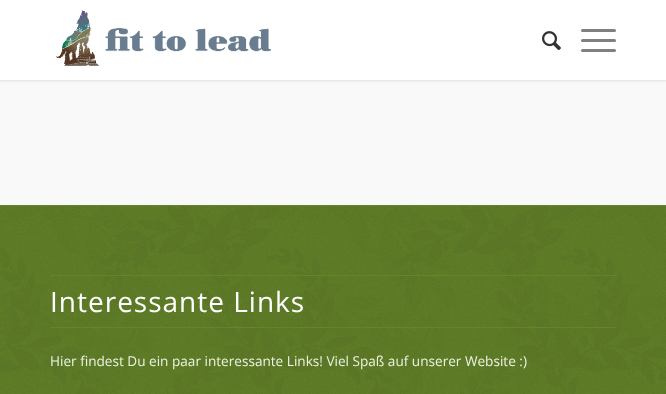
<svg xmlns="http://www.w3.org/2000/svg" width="666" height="394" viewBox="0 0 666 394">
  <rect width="100%" height="100%" fill="#f9f9f9"/>
  <path d="M-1 -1h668v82H-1z" fill="#0000001a" filter="blur(1px)"/>
  <path d="M0 0h666v80H0z" fill="#fff"/>
  <image x="56" y="10" width="215" height="56" href="img/1.png"/>
  <image x="542" y="31" width="19" height="20" href="img/2.png"/>
  <rect x="581" y="39" width="35" height="3" rx="1.5" fill="#808080"/>
  <rect x="581" y="29" width="35" height="3" rx="1.5" fill="#808080"/>
  <rect x="581" y="49" width="35" height="3" rx="1.5" fill="#808080"/>
  <path d="M0 205h666v189H0z" fill="#658529"/>
  <image x="0" y="206" width="666" height="188" href="img/3.png"/>
  <path d="M50 275h566v1H50z" fill="#658529"/>
  <path d="M50 327h566v1H50z" fill="#658529"/>
  <text x="50" y="312" font-family="Open Sans" font-size="28" letter-spacing="1" fill="#fff">Interessante Links</text>
  <text x="50" y="366" font-family="Open Sans" font-size="13.6" fill="#ecf2e1">Hier findest Du ein paar interessante Links! Viel Spaß auf unserer Website :)</text>
</svg>
